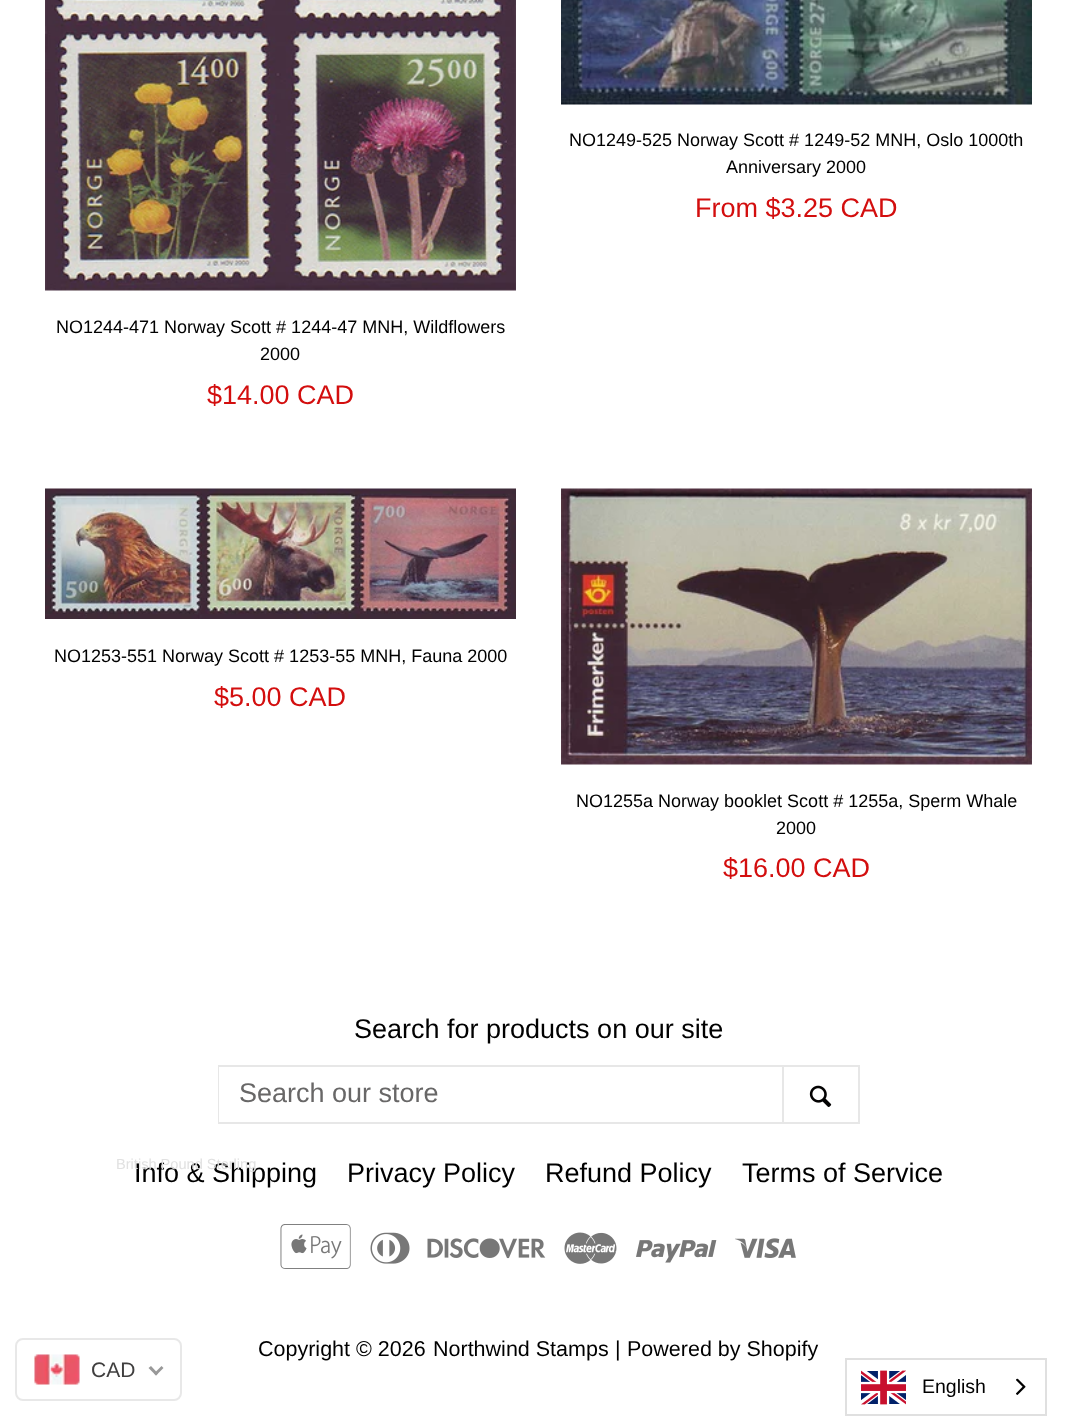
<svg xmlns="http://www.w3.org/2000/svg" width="1076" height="1416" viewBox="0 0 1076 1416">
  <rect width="100%" height="100%" fill="#fff"/>
  <image x="561" y="0" width="471" height="105" href="img/1.png"/>
  <image x="45" y="0" width="471" height="291" href="img/2.png"/>
  <image x="45" y="488" width="471" height="131" href="img/3.png"/>
  <image x="561" y="488" width="471" height="277" href="img/4.png"/>
  <path d="M219 1066h640v57H219z" fill="none" stroke="#e7e7e7" stroke-width="2"/>
  <path d="M219 1067h1v55H219z" fill="#fff"/>
  <path d="M782 1067h2v55H782z" fill="#e7e7e7"/>
  <image x="809" y="1085" width="23" height="22" href="img/5.png"/>
  <image x="280" y="1224" width="71" height="45" href="img/6.png"/>
  <image x="370" y="1232" width="40" height="32" href="img/7.png"/>
  <image x="427" y="1238" width="119" height="21" href="img/8.png"/>
  <image x="564" y="1232" width="53" height="32" href="img/9.png"/>
  <image x="636" y="1240" width="81" height="23" href="img/10.png"/>
  <image x="735" y="1238" width="61" height="20" href="img/11.png"/>
  <rect x="16" y="1339" width="165" height="61" rx="7" fill="none" stroke="#e8e8e8" stroke-width="2"/>
  <image x="34" y="1354" width="46" height="31" href="img/12.png"/>
  <path d="M161.5 1366L163.5 1368L156 1375.5L154 1373.5Z" fill="#999"/>
  <path d="M151 1366L158 1373.5L156 1375.5L148.5 1368Z" fill="#999"/>
  <path d="M846 1359h200v56H846z" fill="none" stroke="#e0e0e0" stroke-width="2"/>
  <image x="861" y="1370" width="45" height="35" href="img/13.png"/>
  <image x="1016" y="1378" width="10" height="17" href="img/14.png"/>
  <g font-family="Liberation Sans" font-size="18" fill="#000">
    <text x="569" y="146">NO1249-525 Norway Scott # 1249-52 MNH, Oslo 1000th</text>
    <text x="726" y="173">Anniversary 2000</text>
  </g>
  <text x="695" y="217" font-family="Liberation Sans" font-size="27" fill="#d30e0e">From $3.25 CAD</text>
  <g font-family="Liberation Sans" font-size="18" fill="#000">
    <text x="56" y="333">NO1244-471 Norway Scott # 1244-47 MNH, Wildflowers</text>
    <text x="260" y="360">2000</text>
  </g>
  <text x="207" y="404" font-family="Liberation Sans" font-size="27" fill="#d30e0e">$14.00 CAD</text>
  <text x="54" y="662" font-family="Liberation Sans" font-size="18" fill="#000">NO1253-551 Norway Scott # 1253-55 MNH, Fauna 2000</text>
  <text x="214" y="706" font-family="Liberation Sans" font-size="27" fill="#d30e0e">$5.00 CAD</text>
  <g font-family="Liberation Sans" font-size="18" fill="#000">
    <text x="576" y="807">NO1255a Norway booklet Scott # 1255a, Sperm Whale</text>
    <text x="776" y="834">2000</text>
  </g>
  <text x="723" y="877" font-family="Liberation Sans" font-size="27" fill="#d30e0e">$16.00 CAD</text>
  <text x="354" y="1038" font-family="Liberation Sans" font-size="27" fill="#000">Search for products on our site</text>
  <text x="239" y="1102" font-family="Liberation Sans" font-size="27" fill="#686767">Search our store</text>
  <g font-family="Liberation Sans" font-size="27" fill="#000">
    <text x="134" y="1182">Info &amp; Shipping</text>
    <text x="347" y="1182">Privacy Policy</text>
    <text x="545" y="1182">Refund Policy</text>
    <text x="742" y="1182">Terms of Service</text>
  </g>
  <g font-family="Liberation Sans" font-size="21.5" fill="#000">
    <text x="258" y="1356">Copyright © 2026</text>
    <text x="433" y="1356">Northwind Stamps</text>
    <text x="615" y="1356">|</text>
    <text x="627" y="1356">Powered by Shopify</text>
  </g>
  <text x="116" y="1169" font-family="Liberation Sans" font-size="14.6" fill="#e1e1e1">British Pound Sterling</text>
  <text x="91" y="1377" font-family="Liberation Sans" font-size="21" fill="#403f3f">CAD</text>
  <text x="922" y="1393" font-family="Liberation Sans" font-size="19.5" fill="#000">English</text>
</svg>
